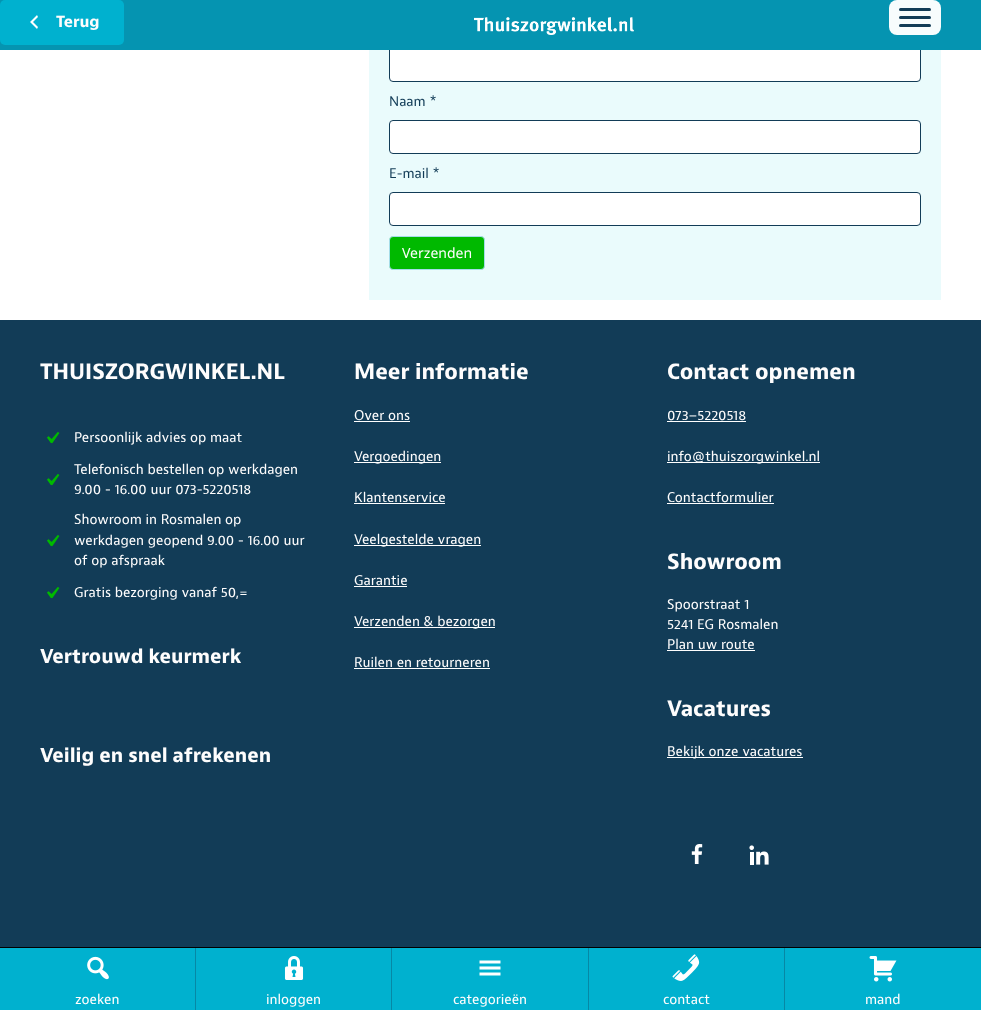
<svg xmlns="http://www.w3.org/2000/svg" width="981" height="1010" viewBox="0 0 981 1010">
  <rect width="100%" height="100%" fill="#fff"/>
  <path d="M369 50h572v250H369z" fill="#eafbfc"/>
  <rect x="389.5" y="7.5" width="531" height="74" rx="3.5" fill="#fff" stroke="#123c57"/>
  <path d="M0 0h981v50H0z" fill="#0594b1"/>
  <rect width="124" height="45" rx="5" fill="#00b1cf"/>
  <image x="30" y="15" width="8" height="14" href="img/1.png"/>
  <image x="474" y="17" width="160" height="18" href="img/2.png"/>
  <rect x="889" width="52" height="35" rx="8" fill="#f7fcfd"/>
  <rect x="899" y="8" width="32" height="3" rx="1.5" fill="#123c57"/>
  <rect x="899" y="16" width="32" height="3" rx="1.5" fill="#123c57"/>
  <rect x="899" y="24" width="32" height="3" rx="1.5" fill="#123c57"/>
  <path d="M0 948h981v62H0z" fill="#00b1cf"/>
  <path d="M195 948h1v62H195z" fill="#0688a5"/>
  <image x="87" y="956" width="22" height="24" href="img/3.png"/>
  <path d="M391 948h1v62H391z" fill="#0688a5"/>
  <image x="284" y="956" width="20" height="24" href="img/4.png"/>
  <path d="M588 948h1v62H588z" fill="#0688a5"/>
  <image x="479" y="960" width="22" height="16" href="img/5.png"/>
  <path d="M784 948h1v62H784z" fill="#0688a5"/>
  <image x="672" y="954" width="28" height="27" href="img/6.png"/>
  <image x="869" y="956" width="28" height="26" href="img/7.png"/>
  <rect x="389.5" y="120.5" width="531" height="33" rx="3.5" fill="#fff" stroke="#123c57"/>
  <rect x="389.5" y="192.5" width="531" height="33" rx="3.5" fill="#fff" stroke="#123c57"/>
  <rect x="389.5" y="236.5" width="95" height="33" rx="3.5" fill="#00b900" stroke="#a5dde9"/>
  <path d="M0 320h981v627H0z" fill="#123c57"/>
  <image x="47" y="432" width="13" height="12" href="img/8.png"/>
  <image x="47" y="474" width="13" height="12" href="img/8.png"/>
  <image x="47" y="535" width="13" height="12" href="img/8.png"/>
  <image x="47" y="587" width="13" height="12" href="img/8.png"/>
  <path d="M354 421h56v1H354z" fill="#fff"/>
  <path d="M354 462h87v1H354z" fill="#fff"/>
  <path d="M354 503h91v1H354z" fill="#fff"/>
  <path d="M354 545h127v1H354z" fill="#fff"/>
  <path d="M354 586h53v1H354z" fill="#fff"/>
  <path d="M354 627h141v1H354z" fill="#fff"/>
  <path d="M354 668h136v1H354z" fill="#fff"/>
  <path d="M667 421h79v1H667z" fill="#fff"/>
  <path d="M667 462h153v1H667z" fill="#fff"/>
  <path d="M667 503h107v1H667z" fill="#fff"/>
  <path d="M667 650h88v1H667z" fill="#fff"/>
  <path d="M667 757h136v1H667z" fill="#fff"/>
  <image x="691" y="844" width="12" height="20" href="img/9.png"/>
  <image x="749" y="845" width="20" height="20" href="img/10.png"/>
  <path d="M0 947h981v1H0z" fill="#000"/>
  <text x="56" y="27" font-family="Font" font-size="16" font-weight="bold" fill="#fefdfd">Terug</text>
  <g font-family="Font" font-size="14" fill="#fefdfd">
    <text x="75" y="1004">zoeken</text>
    <text x="266" y="1004">inloggen</text>
    <text x="453" y="1004">categorieën</text>
    <text x="663" y="1004">contact</text>
    <text x="865" y="1004">mand</text>
  </g>
  <g font-family="Font" font-size="14" fill="#123c57">
    <text x="389" y="106">Naam *</text>
    <text x="389" y="178">E-mail *</text>
  </g>
  <text x="402" y="258" font-family="Noto Sans" font-size="14" fill="#fefdfd">Verzenden</text>
  <text x="40" y="379" font-family="Font" font-size="22" font-weight="bold" fill="#fefdfd">THUISZORGWINKEL.NL</text>
  <g font-family="Font" font-size="14" fill="#fefdfd">
    <text x="74" y="442">Persoonlijk advies op maat</text>
    <text x="74" y="474">Telefonisch bestellen op werkdagen</text>
    <text x="74" y="494">9.00 - 16.00 uur 073-5220518</text>
    <text x="74" y="524">Showroom in Rosmalen op</text>
    <text x="74" y="545">werkdagen geopend 9.00 - 16.00 uur</text>
    <text x="74" y="565">of op afspraak</text>
    <text x="74" y="597">Gratis bezorging vanaf 50,=</text>
  </g>
  <g font-family="Font" font-size="20" font-weight="bold" fill="#fefdfd">
    <text x="40" y="663">Vertrouwd keurmerk</text>
    <text x="40" y="762">Veilig en snel afrekenen</text>
  </g>
  <text x="354" y="379" font-family="Font" font-size="22" font-weight="bold" fill="#fefdfd">Meer informatie</text>
  <g font-family="Font" font-size="14" fill="#fefdfd">
    <text x="354" y="420">Over ons</text>
    <text x="354" y="461">Vergoedingen</text>
    <text x="354" y="502">Klantenservice</text>
    <text x="354" y="544">Veelgestelde vragen</text>
    <text x="354" y="585">Garantie</text>
    <text x="354" y="626">Verzenden &amp; bezorgen</text>
    <text x="354" y="667">Ruilen en retourneren</text>
  </g>
  <text x="667" y="379" font-family="Font" font-size="22" font-weight="bold" fill="#fefdfd">Contact opnemen</text>
  <g font-family="Font" font-size="14" fill="#fefdfd">
    <text x="667" y="420">073–5220518</text>
    <text x="667" y="461">info@thuiszorgwinkel.nl</text>
    <text x="667" y="502">Contactformulier</text>
  </g>
  <text x="667" y="569" font-family="Font" font-size="22" font-weight="bold" fill="#fefdfd">Showroom</text>
  <g font-family="Font" font-size="14" fill="#fefdfd">
    <text x="667" y="609">Spoorstraat 1</text>
    <text x="667" y="629">5241 EG Rosmalen</text>
    <text x="667" y="649">Plan uw route</text>
  </g>
  <text x="667" y="716" font-family="Font" font-size="22" font-weight="bold" fill="#fefdfd">Vacatures</text>
  <text x="667" y="756" font-family="Font" font-size="14" fill="#fefdfd">Bekijk onze vacatures</text>
</svg>
